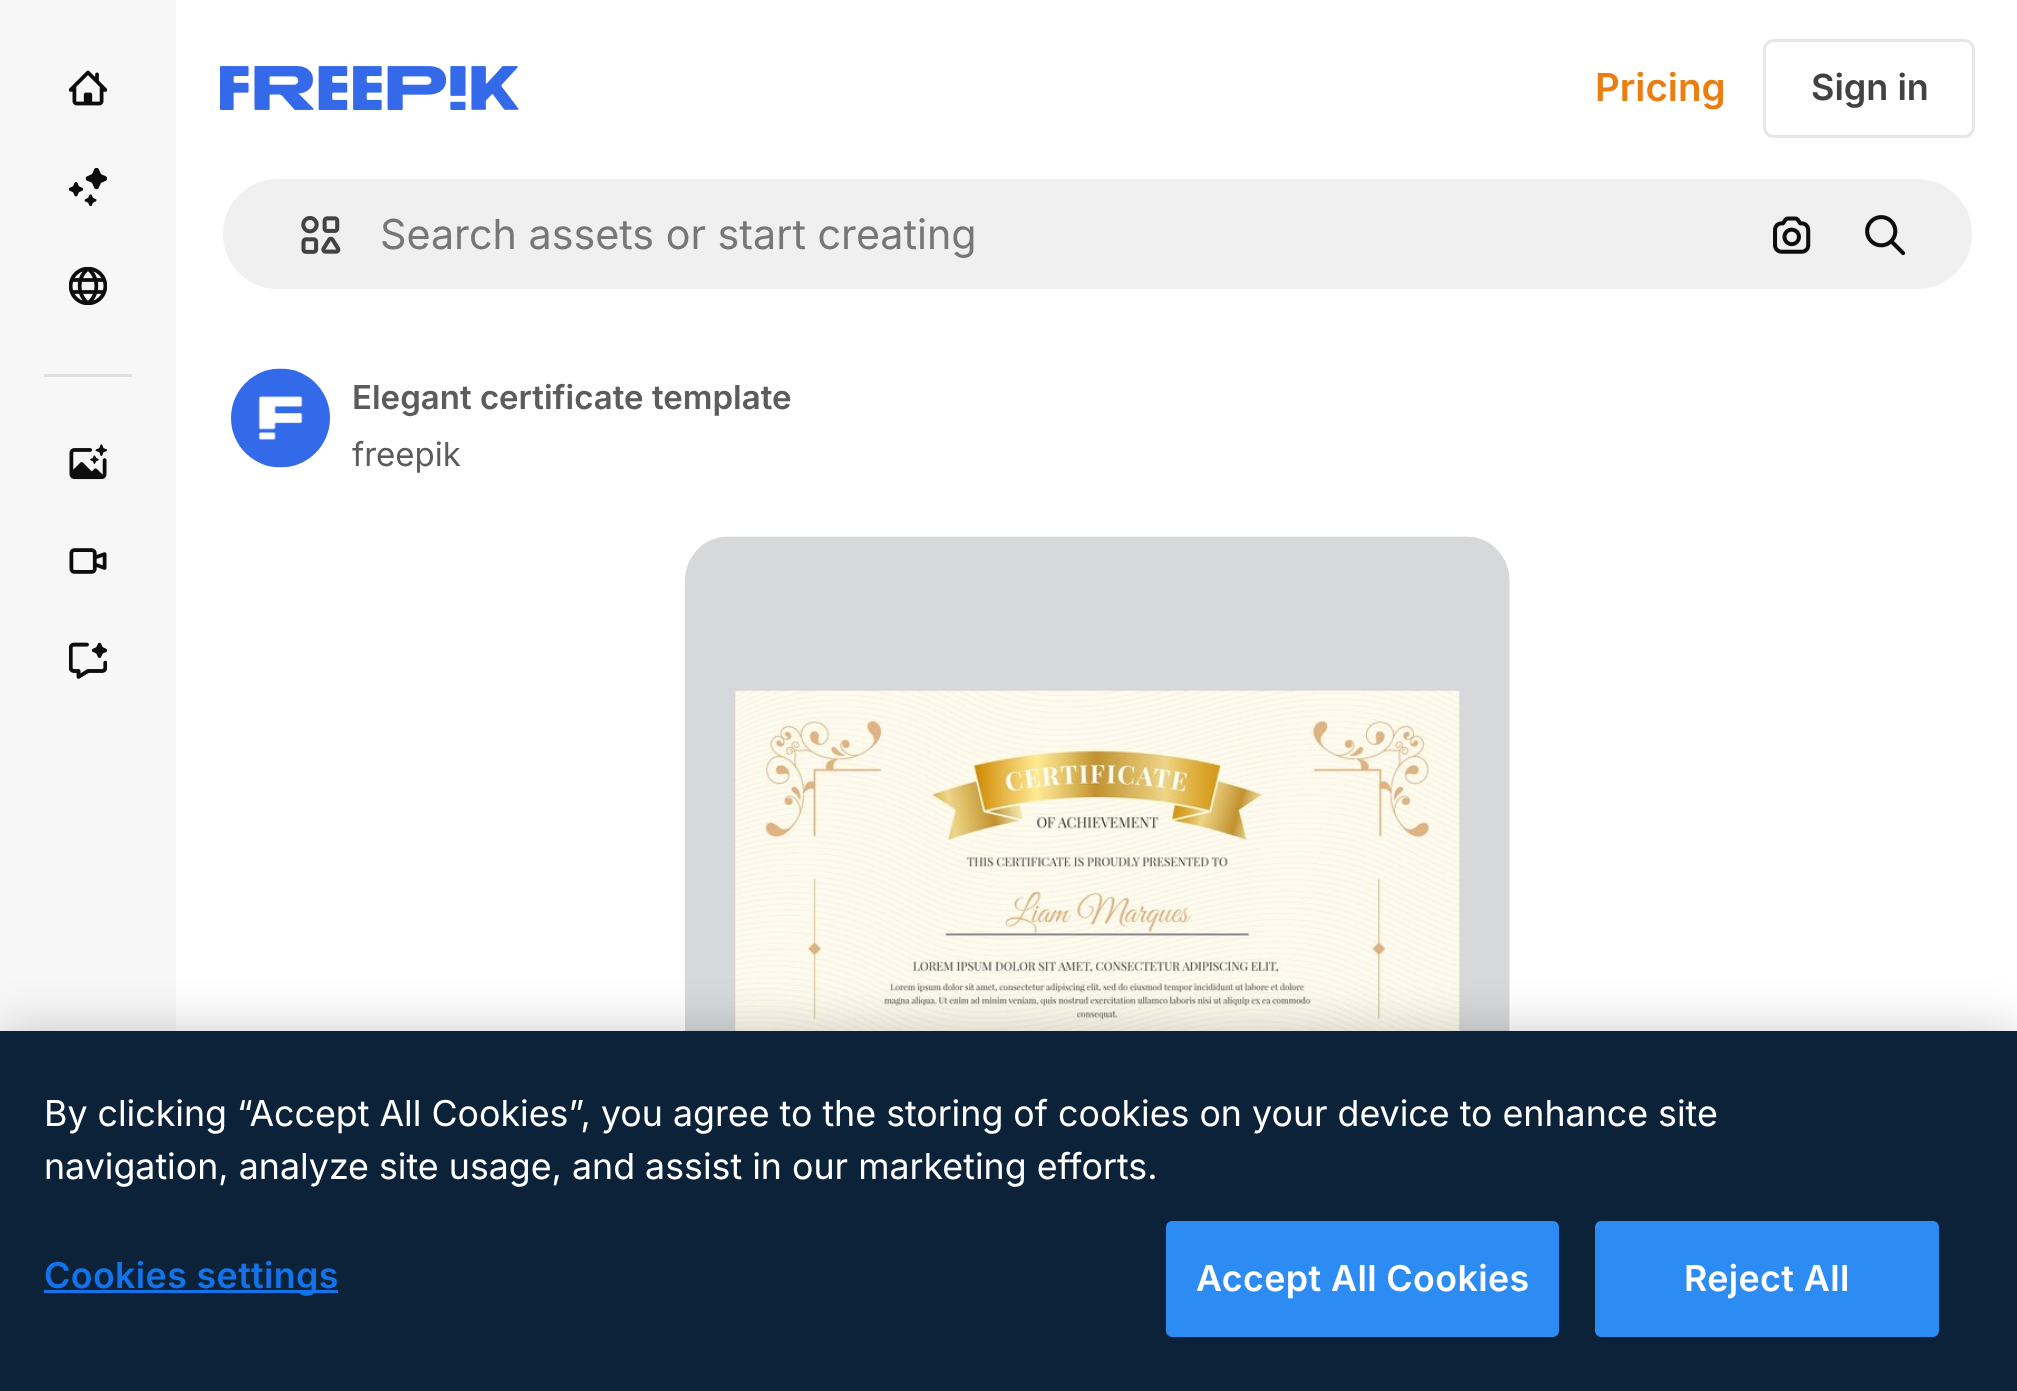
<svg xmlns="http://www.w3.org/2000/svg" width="2017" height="1391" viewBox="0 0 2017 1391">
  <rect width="100%" height="100%" fill="#fff"/>
  <path d="M0 0h176v1031H0z" fill="#f7f7f7"/>
  <image x="69" y="70" width="38" height="36" href="img/1.png"/>
  <image x="69" y="168" width="38" height="38" href="img/2.png"/>
  <image x="69" y="267" width="38" height="38" href="img/3.png"/>
  <path d="M44 374h88v3H44z" fill="#e0e0e0"/>
  <image x="69" y="444" width="38" height="36" href="img/4.png"/>
  <image x="69" y="548" width="38" height="26" href="img/5.png"/>
  <image x="69" y="642" width="38" height="37" href="img/6.png"/>
  <image x="220" y="66" width="299" height="44" href="img/7.png"/>
  <rect x="1764.5" y="40.5" width="209" height="96" rx="9.5" fill="none" stroke="#e7e7e7" stroke-width="3"/>
  <rect x="221.5" y="177.5" width="1752" height="113" rx="56.5" fill="#f0f0f0" stroke="#fff" stroke-width="3"/>
  <image x="301" y="216" width="40" height="38" href="img/8.png"/>
  <image x="1773" y="216" width="38" height="38" href="img/9.png"/>
  <image x="1865" y="215" width="41" height="41" href="img/10.png"/>
  <image x="231" y="368" width="99" height="100" href="img/11.png"/>
  <image x="685" y="536" width="825" height="495" href="img/12.png"/>
  <path d="M0 1031h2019v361H0z" fill="#00000033" filter="blur(25px)"/>
  <path d="M0 1031h2017v360H0z" fill="#0b2239"/>
  <path d="M44 1290h294v3H44z" fill="#1273eb"/>
  <rect x="1167.5" y="1222.5" width="390" height="113" rx="4.5" fill="#2c8cf4" stroke="#2c8cf4" stroke-width="3"/>
  <rect x="1596.5" y="1222.5" width="341" height="113" rx="4.5" fill="#2c8cf4" stroke="#2c8cf4" stroke-width="3"/>
  <text x="1595" y="101" font-family="Inter" font-size="38.5" font-weight="600" fill="#ea7e11">Pricing</text>
  <text x="1811" y="100" font-family="Inter" font-size="36" font-weight="600" fill="#424242">Sign in</text>
  <text x="380" y="249" font-family="Inter" font-size="41.25" fill="#777">Search assets or start creating</text>
  <text x="352" y="409" font-family="Inter" font-size="33" font-weight="600" fill="#5c5c5c">Elegant certificate template</text>
  <text x="352" y="466" font-family="Inter" font-size="33" fill="#5c5c5c">freepik</text>
  <g font-family="Inter" font-size="35.75" fill="#fff">
    <text x="44" y="1126">By clicking “Accept All Cookies”, you agree to the storing of cookies on your device to enhance site</text>
    <text x="44" y="1179">navigation, analyze site usage, and assist in our marketing efforts.</text>
  </g>
  <text x="44" y="1288" font-family="Inter" font-size="35.75" font-weight="600" letter-spacing="0.4" fill="#1273eb">Cookies settings</text>
  <g font-family="Inter" font-size="35.75" font-weight="600" letter-spacing="0.4" fill="#fff">
    <text x="1196" y="1291">Accept All Cookies</text>
    <text x="1684" y="1291">Reject All</text>
  </g>
</svg>
